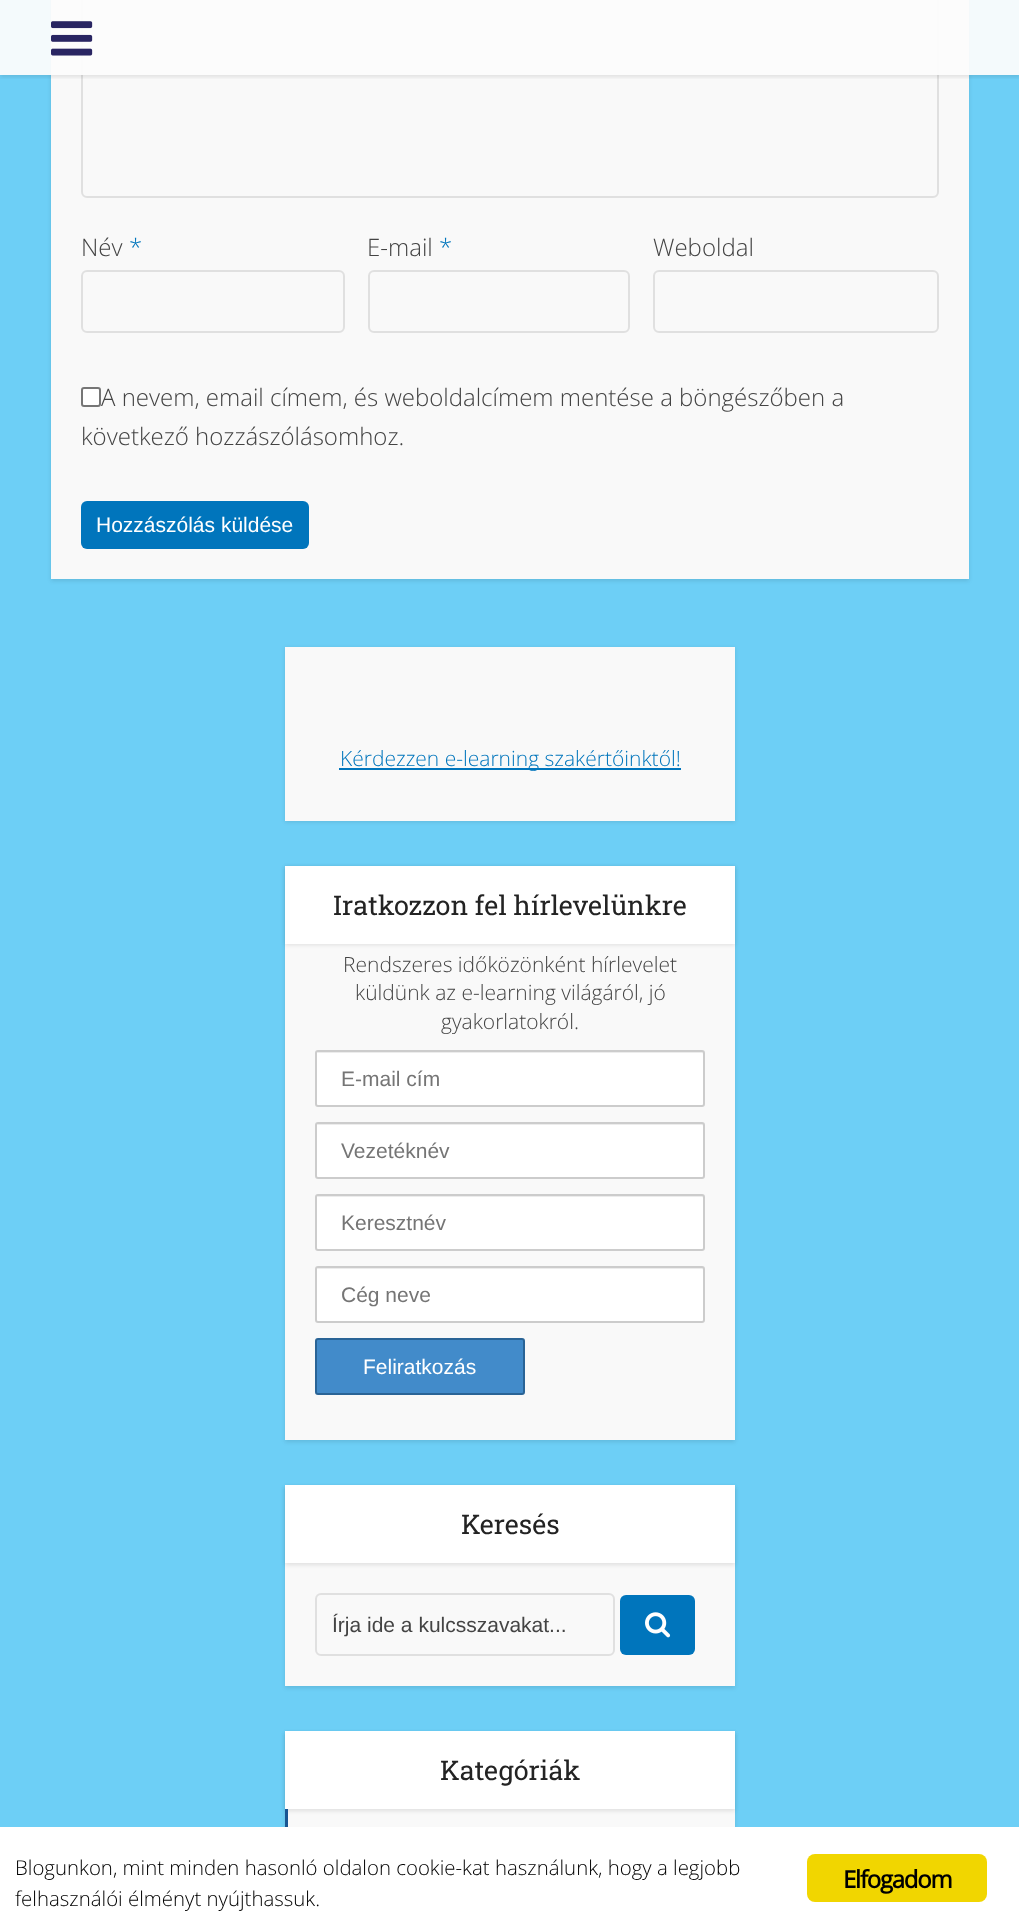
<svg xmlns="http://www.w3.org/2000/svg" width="1019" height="1928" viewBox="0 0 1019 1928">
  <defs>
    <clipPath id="clip1"><path d="M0 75h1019v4H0z"/></clipPath>
  </defs>
  <rect width="100%" height="100%" fill="#6dcff6"/>
  <path d="M51 -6h918v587H51z" fill="#0000001a" filter="blur(2px)"/>
  <path d="M51 0h918v579H51z" fill="#f9f9f9"/>
  <rect x="82" y="-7" width="856" height="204" rx="5" fill="none" stroke="#e0e0e0" stroke-width="2"/>
  <g clip-path="url(#clip1)">
    <path d="M0 2h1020v75H0z" fill="#0000001a" filter="blur(2px)"/>
  </g>
  <path d="M0 0h1019v75H0z" fill="#fcfcfcf2"/>
  <image x="51" y="21" width="42" height="35" href="img/1.png"/>
  <rect x="82" y="271" width="262" height="61" rx="5" fill="none" stroke="#e0e0e0" stroke-width="2"/>
  <rect x="369" y="271" width="260" height="61" rx="5" fill="none" stroke="#e0e0e0" stroke-width="2"/>
  <rect x="654" y="271" width="284" height="61" rx="5" fill="none" stroke="#e0e0e0" stroke-width="2"/>
  <rect x="82" y="388" width="18" height="18" rx="2" fill="#fff" stroke="#767676" stroke-width="2"/>
  <rect x="81" y="501" width="228" height="48" rx="6" fill="#0075bc"/>
  <path d="M285 648h450v174H285z" fill="#0000001a" filter="blur(2px)"/>
  <path d="M285 647h450v174H285z" fill="#f9f9f9"/>
  <path d="M339 768h342v2H339z" fill="#0075bc"/>
  <path d="M285 867h450v575H285z" fill="#0000001a" filter="blur(2px)"/>
  <path d="M285 944h450v496H285z" fill="#f9f9f9"/>
  <path d="M285 867h450v78H285z" fill="#0000001a" filter="blur(2px)"/>
  <path d="M285 866h450v78H285z" fill="#fff"/>
  <rect x="315" y="1050" width="390" height="57" rx="3" fill="#fff"/>
  <path d="M318 1053H702L704 1054V1053L703 1052H318C318 1052 317 1053 317 1053Z" fill="#ececec"/>
  <rect x="316" y="1051" width="388" height="55" rx="2" fill="none" stroke="#ccc" stroke-width="2"/>
  <rect x="315" y="1122" width="390" height="57" rx="3" fill="#fff"/>
  <path d="M318 1125H702L704 1126V1125L703 1124H318C318 1124 317 1125 317 1125Z" fill="#ececec"/>
  <rect x="316" y="1123" width="388" height="55" rx="2" fill="none" stroke="#ccc" stroke-width="2"/>
  <rect x="315" y="1194" width="390" height="57" rx="3" fill="#fff"/>
  <path d="M318 1197H702L704 1198V1197L703 1196H318C318 1196 317 1197 317 1197Z" fill="#ececec"/>
  <rect x="316" y="1195" width="388" height="55" rx="2" fill="none" stroke="#ccc" stroke-width="2"/>
  <rect x="315" y="1266" width="390" height="57" rx="3" fill="#fff"/>
  <path d="M318 1269H702L704 1270V1269L703 1268H318C318 1268 317 1269 317 1269Z" fill="#ececec"/>
  <rect x="316" y="1267" width="388" height="55" rx="2" fill="none" stroke="#ccc" stroke-width="2"/>
  <rect x="316" y="1339" width="208" height="55" rx="2" fill="#428bca" stroke="#2a6496" stroke-width="2"/>
  <path d="M285 1487h450v201H285z" fill="#0000001a" filter="blur(2px)"/>
  <path d="M285 1563h450v123H285z" fill="#f9f9f9"/>
  <path d="M285 1487h450v78H285z" fill="#0000001a" filter="blur(2px)"/>
  <path d="M285 1485h450v78H285z" fill="#fff"/>
  <rect x="316" y="1594" width="298" height="61" rx="5" fill="none" stroke="#e0e0e0" stroke-width="2"/>
  <rect x="620" y="1595" width="75" height="60" rx="6" fill="#0075bc"/>
  <image x="645" y="1612" width="26" height="26" href="img/2.png"/>
  <path d="M285 1733h450v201H285z" fill="#0000001a" filter="blur(2px)"/>
  <path d="M288 1809h447v18H288z" fill="#f9f9f9"/>
  <path d="M285 1733h450v78H285z" fill="#0000001a" filter="blur(2px)"/>
  <path d="M285 1731h450v78H285z" fill="#fff"/>
  <path d="M285 1809h3v18H285z" fill="#185592"/>
  <path d="M0 1827h1019v101H0z" fill="#fff"/>
  <rect x="807" y="1854" width="180" height="48" rx="8" fill="#f1d600"/>
  <text x="81" y="256" font-family="Open Sans" font-size="24" font-weight="300" fill="#444">Név</text>
  <text x="129" y="256" font-family="Open Sans" font-size="24" font-weight="300" fill="#0075bc">*</text>
  <text x="367" y="256" font-family="Open Sans" font-size="24" font-weight="300" fill="#444">E-mail</text>
  <text x="439" y="256" font-family="Open Sans" font-size="24" font-weight="300" fill="#0075bc">*</text>
  <g font-family="Open Sans" font-size="24" font-weight="300" fill="#444">
    <text x="653" y="256">Weboldal</text>
    <text x="101" y="406">A nevem, email címem, és weboldalcímem mentése a böngészőben a</text>
    <text x="81" y="445">következő hozzászólásomhoz.</text>
  </g>
  <text x="96" y="532" font-family="Liberation Sans" font-size="21" fill="#fff">Hozzászólás küldése</text>
  <text x="340" y="766" font-family="Open Sans" font-size="21" font-weight="300" fill="#0075bc">Kérdezzen e-learning szakértőinktől!</text>
  <text x="333" y="915" font-family="Roboto Slab" font-size="27" fill="#232323">Iratkozzon fel hírlevelünkre</text>
  <g font-family="Open Sans" font-size="21" font-weight="300" fill="#444">
    <text x="343" y="972">Rendszeres időközönként hírlevelet</text>
    <text x="355" y="1000">küldünk az e-learning világáról, jó</text>
    <text x="441" y="1029">gyakorlatokról.</text>
  </g>
  <g font-family="Liberation Sans" font-size="21" fill="#757575">
    <text x="341" y="1086">E-mail cím</text>
    <text x="341" y="1158">Vezetéknév</text>
    <text x="341" y="1230">Keresztnév</text>
    <text x="341" y="1302">Cég neve</text>
  </g>
  <text x="363" y="1374" font-family="Liberation Sans" font-size="21" fill="#fff">Feliratkozás</text>
  <text x="461" y="1534" font-family="Roboto Slab" font-size="27" fill="#232323">Keresés</text>
  <text x="332" y="1632" font-family="Liberation Sans" font-size="21" fill="#444">Írja ide a kulcsszavakat...</text>
  <text x="440" y="1780" font-family="Roboto Slab" font-size="27" fill="#232323">Kategóriák</text>
  <g font-family="Open Sans" font-size="20.4" font-weight="300" fill="#000">
    <text x="15" y="1875">Blogunkon, mint minden hasonló oldalon cookie-kat használunk, hogy a legjobb</text>
    <text x="15" y="1906">felhasználói élményt nyújthassuk.</text>
  </g>
  <text x="843" y="1888" font-family="Open Sans" font-size="24" font-weight="bold" letter-spacing="-1.25" fill="#000">Elfogadom</text>
</svg>
